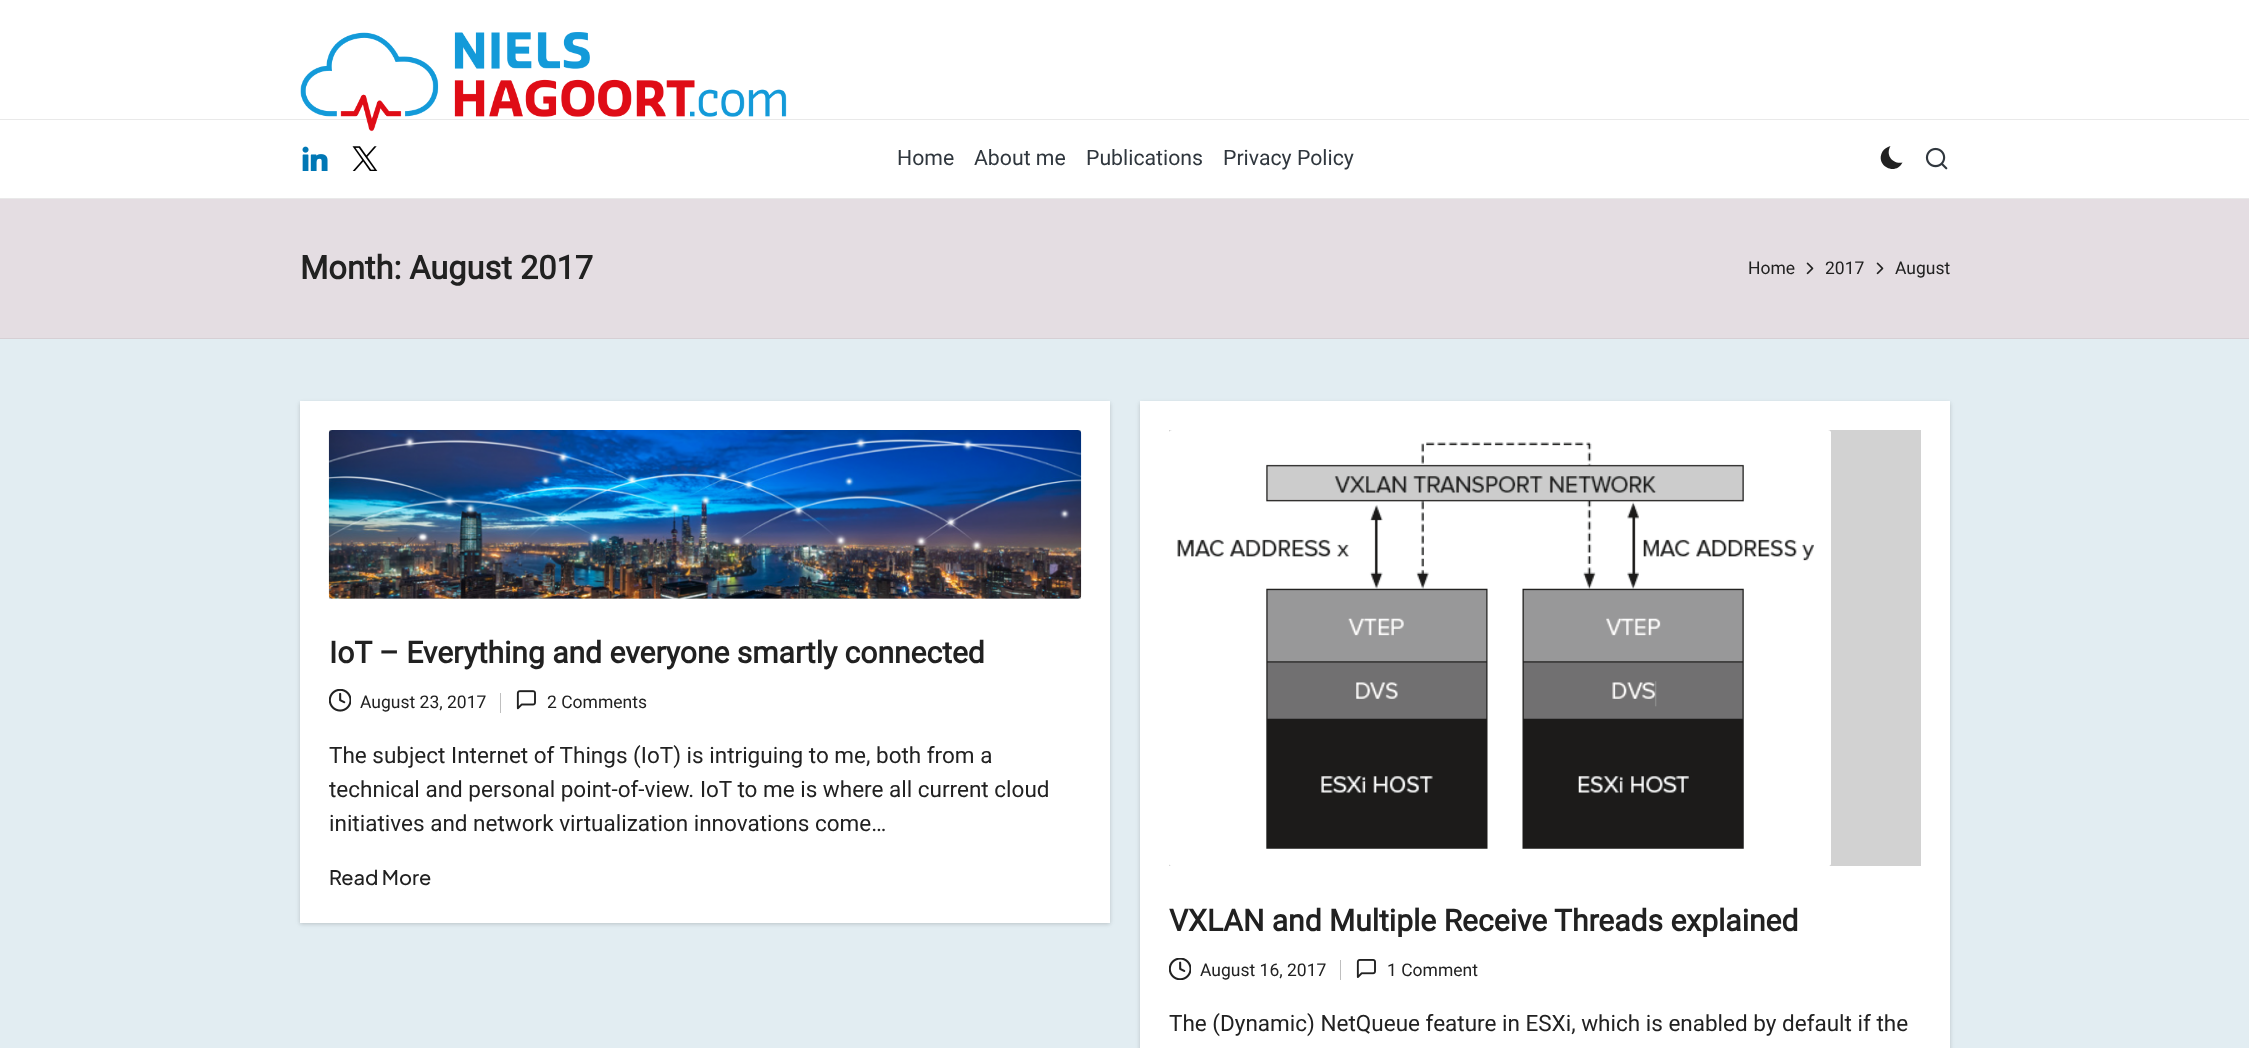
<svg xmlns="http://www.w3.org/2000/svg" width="2249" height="1048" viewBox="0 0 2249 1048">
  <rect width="100%" height="100%" fill="#e2edf2"/>
  <path d="M0 0h2249v119H0z" fill="#fff"/>
  <path d="M0 120h2249v78H0z" fill="#fff"/>
  <path d="M0 119h2249v1H0z" fill="#e9e9e9"/>
  <image x="300" y="32" width="487" height="100" href="img/1.png"/>
  <path d="M0 198h2249v1H0z" fill="#e9e9e9"/>
  <image x="302" y="146" width="26" height="25" href="img/2.png"/>
  <image x="352" y="146" width="26" height="25" href="img/3.png"/>
  <path d="M1902.5 162.5C1893 164.5 1885 155.5 1890.5 146C1887 147 1884 149 1882.5 151.5C1874.5 165.5 1895.5 176.5 1902.5 162.5Z" fill="#212121"/>
  <image x="1925" y="147" width="23" height="23" href="img/4.png"/>
  <path d="M0 199h2249v139H0z" fill="#e4dde2"/>
  <path d="M0 338h2249v1H0z" fill="#d6cfd4"/>
  <image x="1806" y="262" width="8" height="13" href="img/5.png"/>
  <image x="1876" y="262" width="8" height="13" href="img/5.png"/>
  <path d="M300 403h810v521H300z" fill="#0000002e" filter="blur(2px)"/>
  <path d="M300 401h810v522H300z" fill="#fff"/>
  <path d="M329 430h752v169H329z" fill="#d1d1d1"/>
  <image x="328" y="430" width="754" height="169" href="img/6.png"/>
  <image x="329" y="689" width="22" height="23" href="img/7.png"/>
  <path d="M500 693h1v20H500z" fill="#bfbfbf"/>
  <image x="516" y="690" width="20" height="20" href="img/8.png"/>
  <path d="M1140 403h810v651H1140z" fill="#0000002e" filter="blur(2px)"/>
  <path d="M1140 401h810v647H1140z" fill="#fff"/>
  <path d="M1169 430h752v436H1169z" fill="#d2d2d2"/>
  <image x="1169" y="430" width="662" height="436" href="img/9.png"/>
  <image x="1169" y="958" width="22" height="22" href="img/10.png"/>
  <path d="M1340 960h1v20H1340z" fill="#bfbfbf"/>
  <image x="1356" y="959" width="20" height="19" href="img/11.png"/>
  <g font-family="Roboto" font-size="21.25" fill="#30373e">
    <text x="897" y="165">Home</text>
    <text x="974" y="165">About me</text>
    <text x="1086" y="165">Publications</text>
    <text x="1223" y="165">Privacy Policy</text>
  </g>
  <text x="300" y="279" font-family="Roboto" font-size="32.5" font-weight="bold" fill="#212121">Month: August 2017</text>
  <g font-family="Roboto" font-size="17.5" fill="#212121">
    <text x="1748" y="274">Home</text>
    <text x="1825" y="274">2017</text>
    <text x="1895" y="274">August</text>
  </g>
  <text x="329" y="663" font-family="Roboto" font-size="30" font-weight="bold" fill="#212121">IoT – Everything and everyone smartly connected</text>
  <g font-family="Roboto" font-size="17.5" fill="#212121">
    <text x="360" y="708">August 23, 2017</text>
    <text x="547" y="708">2 Comments</text>
  </g>
  <g font-family="Roboto" font-size="22.5" fill="#212121">
    <text x="329" y="763">The subject Internet of Things (IoT) is intriguing to me, both from a</text>
    <text x="329" y="797">technical and personal point-of-view. IoT to me is where all current cloud</text>
    <text x="329" y="831">initiatives and network virtualization innovations come…</text>
  </g>
  <text x="329" y="885" font-family="Plus Jakarta Sans" font-size="20" font-weight="500" fill="#212121">Read More</text>
  <text x="1169" y="931" font-family="Roboto" font-size="30" font-weight="bold" fill="#212121">VXLAN and Multiple Receive Threads explained</text>
  <g font-family="Roboto" font-size="17.5" fill="#212121">
    <text x="1200" y="976">August 16, 2017</text>
    <text x="1387" y="976">1 Comment</text>
  </g>
  <text x="1169" y="1031" font-family="Roboto" font-size="22.5" fill="#212121">The (Dynamic) NetQueue feature in ESXi, which is enabled by default if the</text>
</svg>
